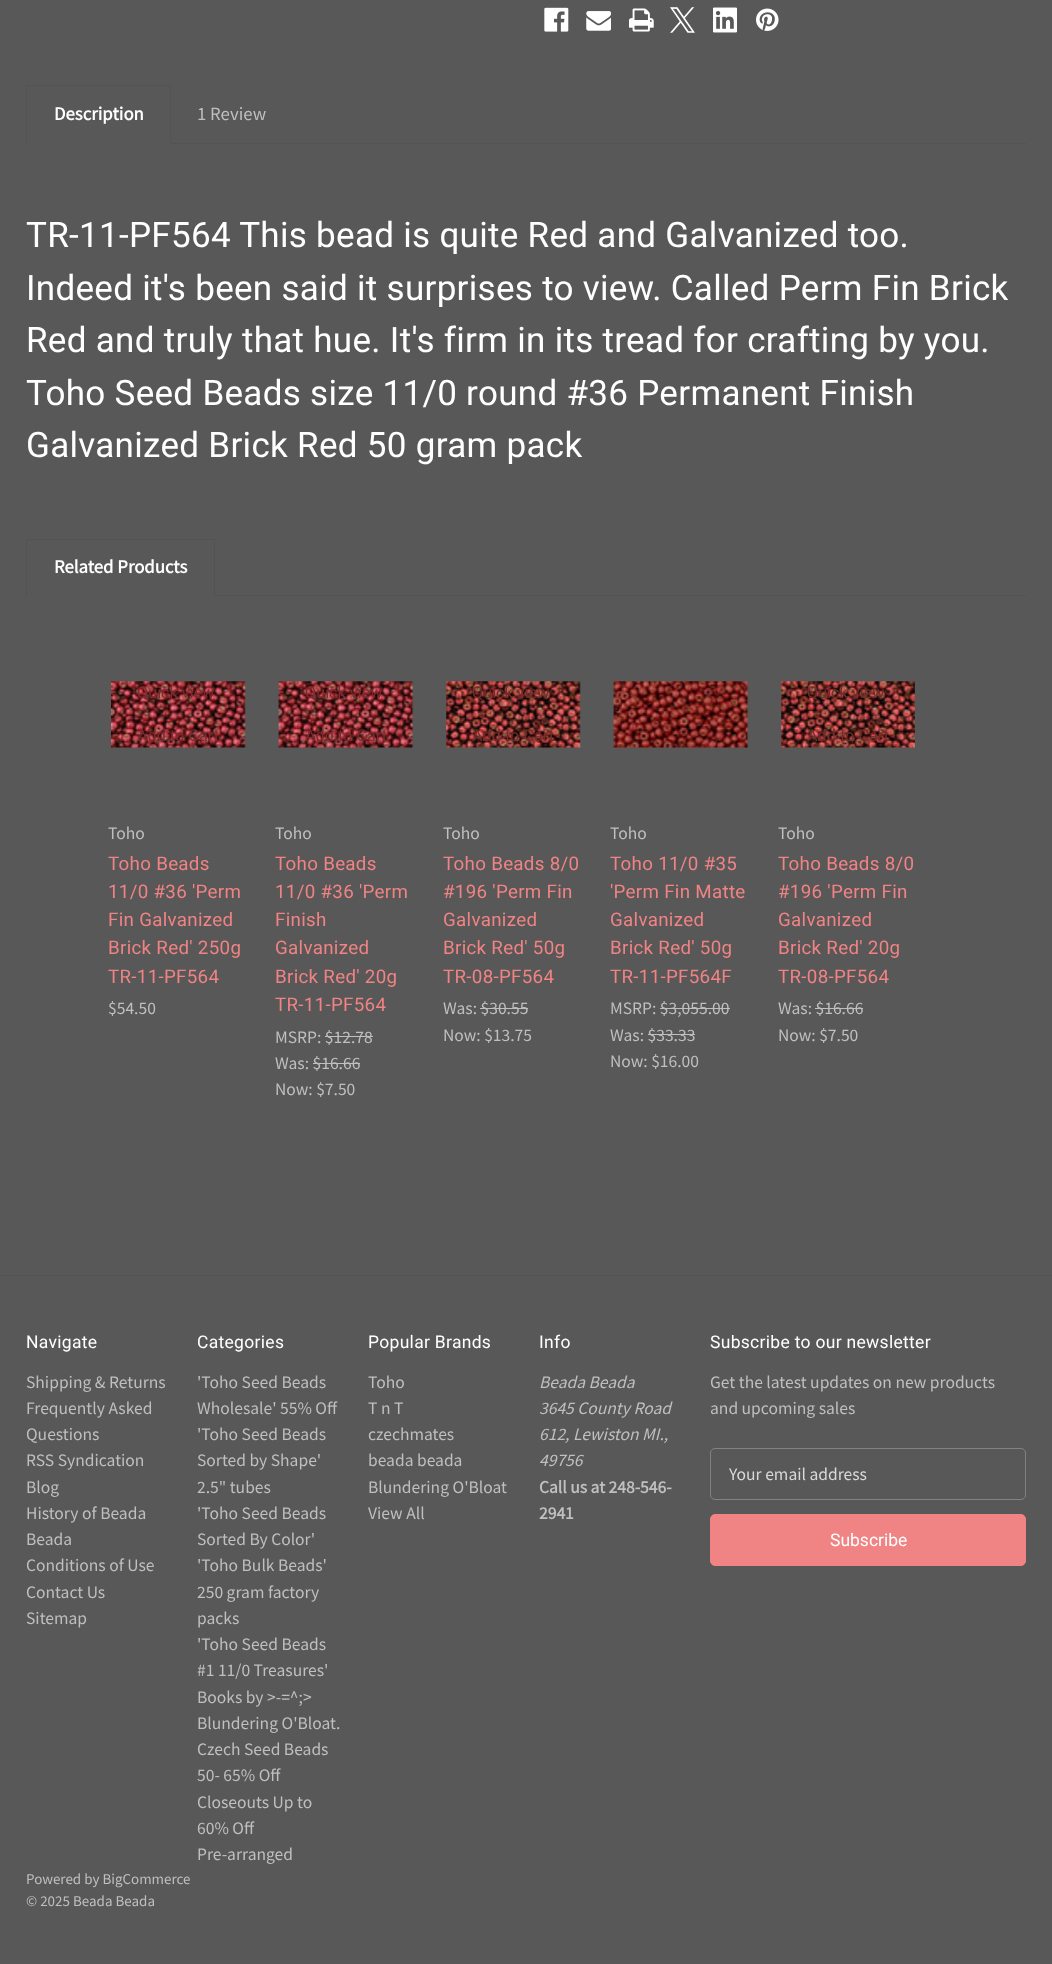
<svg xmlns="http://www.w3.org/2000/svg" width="1052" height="1964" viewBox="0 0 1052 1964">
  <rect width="100%" height="100%" fill="#585858"/>
  <image x="544" y="7" width="25" height="25" href="img/1.png"/>
  <image x="586" y="11" width="25" height="20" href="img/2.png"/>
  <image x="629" y="8" width="25" height="24" href="img/3.png"/>
  <image x="670" y="7" width="25" height="26" href="img/4.png"/>
  <image x="713" y="7" width="24" height="26" href="img/5.png"/>
  <image x="756" y="8" width="23" height="23" href="img/6.png"/>
  <path d="M171 143h855v1H171z" fill="#535353"/>
  <path d="M26 85h145v1H26z" fill="#535353"/>
  <path d="M170 85h1v59H170z" fill="#535353"/>
  <path d="M170 143h1v1H170z" fill="#585858"/>
  <path d="M26 85h1v59H26z" fill="#535353"/>
  <path d="M215 595h811v1H215z" fill="#535353"/>
  <path d="M26 539h189v1H26z" fill="#535353"/>
  <path d="M214 539h1v57H214z" fill="#535353"/>
  <path d="M214 595h1v1H214z" fill="#585858"/>
  <path d="M26 539h1v57H26z" fill="#535353"/>
  <image x="111" y="681" width="135" height="67" href="img/7.png"/>
  <image x="278" y="681" width="136" height="67" href="img/8.png"/>
  <path d="M325 1036h48v1H325z" fill="#bfbfbf"/>
  <path d="M313 1063h47v1H313z" fill="#bfbfbf"/>
  <image x="446" y="681" width="135" height="67" href="img/9.png"/>
  <path d="M480 1008h48v1H480z" fill="#bfbfbf"/>
  <image x="613" y="681" width="136" height="67" href="img/10.png"/>
  <path d="M660 1008h70v1H660z" fill="#bfbfbf"/>
  <path d="M648 1034h47v1H648z" fill="#bfbfbf"/>
  <image x="781" y="681" width="134" height="67" href="img/11.png"/>
  <path d="M815 1008h48v1H815z" fill="#bfbfbf"/>
  <path d="M0 1275h1052v1H0z" fill="#535353"/>
  <rect x="710.5" y="1448.5" width="315" height="51" rx="4.5" fill="none" stroke="#828282"/>
  <rect x="710.5" y="1514.5" width="315" height="51" rx="4.5" fill="#f08383" stroke="#f08383"/>
  <text x="54" y="120" font-family="Source Sans Pro" font-size="18.75" font-weight="bold" fill="#fff">Description</text>
  <text x="197" y="120" font-family="Source Sans Pro" font-size="18.75" fill="#bfbfbf">1 Review</text>
  <g font-family="Roboto" font-size="35" letter-spacing="0.3" fill="#fff">
    <text x="26" y="247">TR-11-PF564 This bead is quite Red and Galvanized too.</text>
    <text x="26" y="300">Indeed it's been said it surprises to view. Called Perm Fin Brick</text>
    <text x="26" y="352">Red and truly that hue. It's firm in its tread for crafting by you.</text>
    <text x="26" y="405">Toho Seed Beads size 11/0 round #36 Permanent Finish</text>
    <text x="26" y="457">Galvanized Brick Red 50 gram pack</text>
  </g>
  <text x="54" y="573" font-family="Source Sans Pro" font-size="18.75" font-weight="bold" fill="#fff">Related Products</text>
  <g font-family="Roboto" font-size="16.25" fill="#7c2b2f">
    <text x="137" y="698">Quick view</text>
    <text x="137" y="741">Add to Cart</text>
  </g>
  <text x="108" y="839" font-family="Source Sans Pro" font-size="17.5" fill="#bfbfbf">Toho</text>
  <g font-family="Roboto" font-size="18.75" letter-spacing="0.3" fill="#f08383">
    <text x="108" y="870">Toho Beads</text>
    <text x="108" y="898">11/0 #36 'Perm</text>
    <text x="108" y="926">Fin Galvanized</text>
    <text x="108" y="954">Brick Red' 250g</text>
    <text x="108" y="983">TR-11-PF564</text>
  </g>
  <text x="108" y="1014" font-family="Source Sans Pro" font-size="17.5" fill="#bfbfbf">$54.50</text>
  <g font-family="Roboto" font-size="16.25" fill="#7c2b2f">
    <text x="305" y="698">Quick view</text>
    <text x="305" y="741">Add to Cart</text>
  </g>
  <text x="275" y="839" font-family="Source Sans Pro" font-size="17.5" fill="#bfbfbf">Toho</text>
  <g font-family="Roboto" font-size="18.75" letter-spacing="0.3" fill="#f08383">
    <text x="275" y="870">Toho Beads</text>
    <text x="275" y="898">11/0 #36 'Perm</text>
    <text x="275" y="926">Finish</text>
    <text x="275" y="954">Galvanized</text>
    <text x="275" y="983">Brick Red' 20g</text>
    <text x="275" y="1011">TR-11-PF564</text>
  </g>
  <g font-family="Source Sans Pro" font-size="17.5" fill="#bfbfbf">
    <text x="275" y="1043">MSRP: $12.78</text>
    <text x="275" y="1069">Was: $16.66</text>
    <text x="275" y="1095">Now: $7.50</text>
  </g>
  <g font-family="Roboto" font-size="16.25" fill="#722f2a">
    <text x="472" y="698">Quick view</text>
    <text x="472" y="741">Add to Cart</text>
  </g>
  <text x="443" y="839" font-family="Source Sans Pro" font-size="17.5" fill="#bfbfbf">Toho</text>
  <g font-family="Roboto" font-size="18.75" letter-spacing="0.3" fill="#f08383">
    <text x="443" y="870">Toho Beads 8/0</text>
    <text x="443" y="898">#196 'Perm Fin</text>
    <text x="443" y="926">Galvanized</text>
    <text x="443" y="954">Brick Red' 50g</text>
    <text x="443" y="983">TR-08-PF564</text>
  </g>
  <g font-family="Source Sans Pro" font-size="17.5" fill="#bfbfbf">
    <text x="443" y="1014">Was: $30.55</text>
    <text x="443" y="1041">Now: $13.75</text>
    <text x="610" y="839">Toho</text>
  </g>
  <g font-family="Roboto" font-size="18.75" letter-spacing="0.3" fill="#f08383">
    <text x="610" y="870">Toho 11/0 #35</text>
    <text x="610" y="898">'Perm Fin Matte</text>
    <text x="610" y="926">Galvanized</text>
    <text x="610" y="954">Brick Red' 50g</text>
    <text x="610" y="983">TR-11-PF564F</text>
  </g>
  <g font-family="Source Sans Pro" font-size="17.5" fill="#bfbfbf">
    <text x="610" y="1014">MSRP: $3,055.00</text>
    <text x="610" y="1041">Was: $33.33</text>
    <text x="610" y="1067">Now: $16.00</text>
  </g>
  <g font-family="Roboto" font-size="16.25" fill="#722f2a">
    <text x="807" y="698">Quick view</text>
    <text x="807" y="741">Add to Cart</text>
  </g>
  <text x="778" y="839" font-family="Source Sans Pro" font-size="17.5" fill="#bfbfbf">Toho</text>
  <g font-family="Roboto" font-size="18.75" letter-spacing="0.3" fill="#f08383">
    <text x="778" y="870">Toho Beads 8/0</text>
    <text x="778" y="898">#196 'Perm Fin</text>
    <text x="778" y="926">Galvanized</text>
    <text x="778" y="954">Brick Red' 20g</text>
    <text x="778" y="983">TR-08-PF564</text>
  </g>
  <g font-family="Source Sans Pro" font-size="17.5" fill="#bfbfbf">
    <text x="778" y="1014">Was: $16.66</text>
    <text x="778" y="1041">Now: $7.50</text>
  </g>
  <text x="26" y="1348" font-family="Roboto" font-size="17.5" letter-spacing="0.3" fill="#fff">Navigate</text>
  <g font-family="Source Sans Pro" font-size="17.5" fill="#bfbfbf">
    <text x="26" y="1388">Shipping &amp; Returns</text>
    <text x="26" y="1414">Frequently Asked</text>
    <text x="26" y="1440">Questions</text>
    <text x="26" y="1466">RSS Syndication</text>
    <text x="26" y="1493">Blog</text>
    <text x="26" y="1519">History of Beada</text>
    <text x="26" y="1545">Beada</text>
    <text x="26" y="1571">Conditions of Use</text>
    <text x="26" y="1598">Contact Us</text>
    <text x="26" y="1624">Sitemap</text>
  </g>
  <text x="197" y="1348" font-family="Roboto" font-size="17.5" letter-spacing="0.3" fill="#fff">Categories</text>
  <g font-family="Source Sans Pro" font-size="17.5" fill="#bfbfbf">
    <text x="197" y="1388">'Toho Seed Beads</text>
    <text x="197" y="1414">Wholesale' 55% Off</text>
    <text x="197" y="1440">'Toho Seed Beads</text>
    <text x="197" y="1466">Sorted by Shape'</text>
    <text x="197" y="1493">2.5" tubes</text>
    <text x="197" y="1519">'Toho Seed Beads</text>
    <text x="197" y="1545">Sorted By Color'</text>
    <text x="197" y="1571">'Toho Bulk Beads'</text>
    <text x="197" y="1598">250 gram factory</text>
    <text x="197" y="1624">packs</text>
    <text x="197" y="1650">'Toho Seed Beads</text>
    <text x="197" y="1676">#1 11/0 Treasures'</text>
    <text x="197" y="1703">Books by &gt;-=^;&gt;</text>
    <text x="197" y="1729">Blundering O'Bloat.</text>
    <text x="197" y="1755">Czech Seed Beads</text>
    <text x="197" y="1781">50- 65% Off</text>
    <text x="197" y="1808">Closeouts Up to</text>
    <text x="197" y="1834">60% Off</text>
    <text x="197" y="1860">Pre-arranged</text>
  </g>
  <text x="368" y="1348" font-family="Roboto" font-size="17.5" letter-spacing="0.3" fill="#fff">Popular Brands</text>
  <g font-family="Source Sans Pro" font-size="17.5" fill="#bfbfbf">
    <text x="368" y="1388">Toho</text>
    <text x="368" y="1414">T n T</text>
    <text x="368" y="1440">czechmates</text>
    <text x="368" y="1466">beada beada</text>
    <text x="368" y="1493">Blundering O'Bloat</text>
    <text x="368" y="1519">View All</text>
  </g>
  <text x="539" y="1348" font-family="Roboto" font-size="17.5" letter-spacing="0.3" fill="#fff">Info</text>
  <g font-family="Source Sans Pro" font-size="17.5" font-style="italic" fill="#bfbfbf">
    <text x="539" y="1388">Beada Beada</text>
    <text x="539" y="1414">3645 County Road</text>
    <text x="539" y="1440">612, Lewiston MI.,</text>
    <text x="539" y="1466">49756</text>
  </g>
  <g font-family="Source Sans Pro" font-size="17.5" font-weight="bold" fill="#bfbfbf">
    <text x="539" y="1493">Call us at 248-546-</text>
    <text x="539" y="1519">2941</text>
  </g>
  <text x="710" y="1348" font-family="Roboto" font-size="17.5" letter-spacing="0.3" fill="#fff">Subscribe to our newsletter</text>
  <g font-family="Source Sans Pro" font-size="17.5" fill="#bfbfbf">
    <text x="710" y="1388">Get the latest updates on new products</text>
    <text x="710" y="1414">and upcoming sales</text>
  </g>
  <text x="729" y="1480" font-family="Source Sans Pro" font-size="17.5" fill="#d9d9d9">Your email address</text>
  <text x="830" y="1546" font-family="Roboto" font-size="17.5" fill="#fff">Subscribe</text>
  <g font-family="Source Sans Pro" font-size="15" fill="#bfbfbf">
    <text x="26" y="1884">Powered by BigCommerce</text>
    <text x="26" y="1906">© 2025 Beada Beada</text>
  </g>
</svg>
